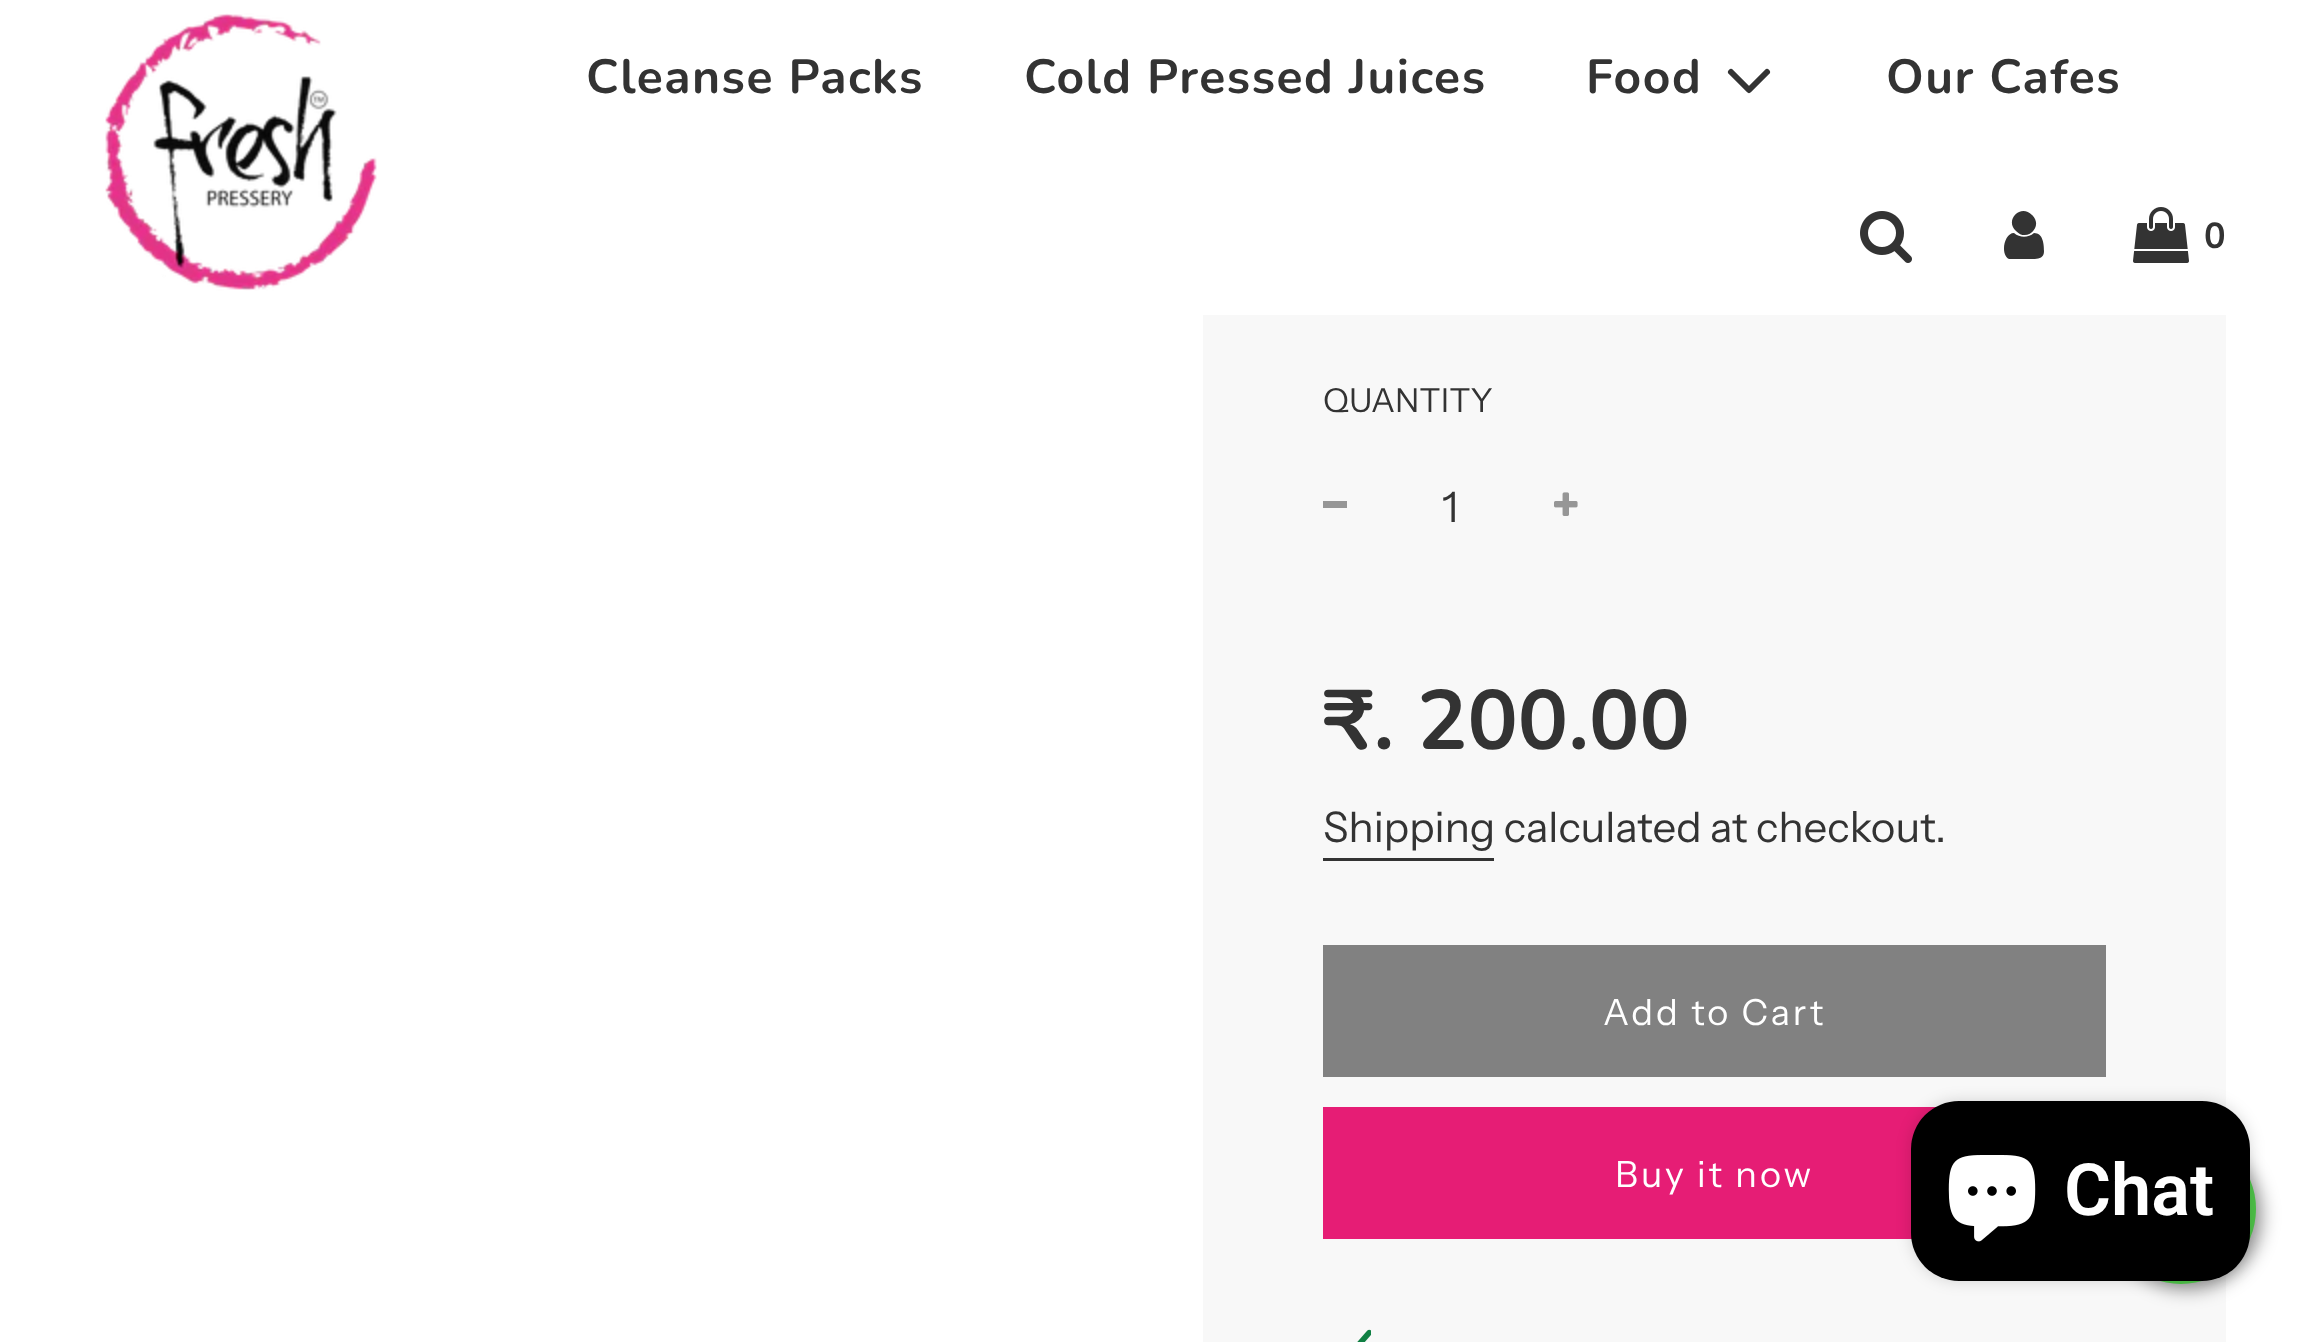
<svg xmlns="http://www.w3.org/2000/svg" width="2314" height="1342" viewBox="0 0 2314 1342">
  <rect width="100%" height="100%" fill="#fff"/>
  <image x="105" y="13" width="272" height="278" href="img/1.png"/>
  <path d="M1731 72L1749 90L1767 72" fill="none" stroke="#333" stroke-width="6" stroke-linecap="round" stroke-linejoin="round"/>
  <image x="1860" y="211" width="52" height="52" href="img/2.png"/>
  <path d="M2044 251C2044 258 2039 259 2033 259H2009C2000 255 2004 233 2014 233C2020 238 2028 238 2034 233C2043 233 2044 244 2044 251ZM2032 215C2044 226 2027 243 2016 231C2004 220 2021 203 2032 215Z" fill="#333"/>
  <image x="2133" y="207" width="56" height="56" href="img/3.png"/>
  <path d="M1203 315h1023v1027H1203z" fill="#f8f8f8"/>
  <path d="M1323 501h24v7H1323z" fill="#969696"/>
  <image x="1554" y="492" width="24" height="24" href="img/4.png"/>
  <path d="M1323 858h171v3H1323z" fill="#333"/>
  <path d="M1323 945h783v132H1323z" fill="#818181"/>
  <path d="M1323 1107h613v132H1323z" fill="#e61d75"/>
  <image x="1357" y="1329" width="14" height="13" href="img/5.png"/>
  <rect x="2112" y="1140" width="150" height="150" rx="75" fill="#00000066" filter="blur(9px)"/>
  <circle cx="2181" cy="1209" r="75" fill="#4dc247"/>
  <rect x="1911" y="1101" width="339" height="180" rx="48" fill="#00000026" filter="blur(7.5px)"/>
  <rect x="1911" y="1101" width="339" height="180" rx="48" fill="#000"/>
  <image x="1948" y="1155" width="88" height="87" href="img/6.png"/>
  <g font-family="Nunito" font-size="48" font-weight="bold" letter-spacing="1.5" fill="#333">
    <text x="586" y="93">Cleanse Packs</text>
    <text x="1024" y="93">Cold Pressed Juices</text>
    <text x="1586" y="93">Food</text>
    <text x="1886" y="93">Our Cafes</text>
  </g>
  <text x="2204" y="248" font-family="Nunito" font-size="36" font-weight="bold" fill="#333">0</text>
  <text x="1323" y="412" font-family="Instrument Sans" font-size="33" fill="#333">QUANTITY</text>
  <text x="1442" y="522" font-family="Instrument Sans" font-size="42" fill="#333">1</text>
  <text x="1323" y="749" font-family="Nunito" font-size="84" font-weight="bold" fill="#333">₹. 200.00</text>
  <text x="1323" y="842" font-family="Instrument Sans" font-size="42" fill="#333">Shipping calculated at checkout.</text>
  <g font-family="Instrument Sans" font-size="36" letter-spacing="3" fill="#fff">
    <text x="1603" y="1025">Add to Cart</text>
    <text x="1615" y="1187">Buy it now</text>
  </g>
  <text x="2064" y="1215" font-family="Roboto" font-size="72" font-weight="600" fill="#fff">Chat</text>
</svg>
